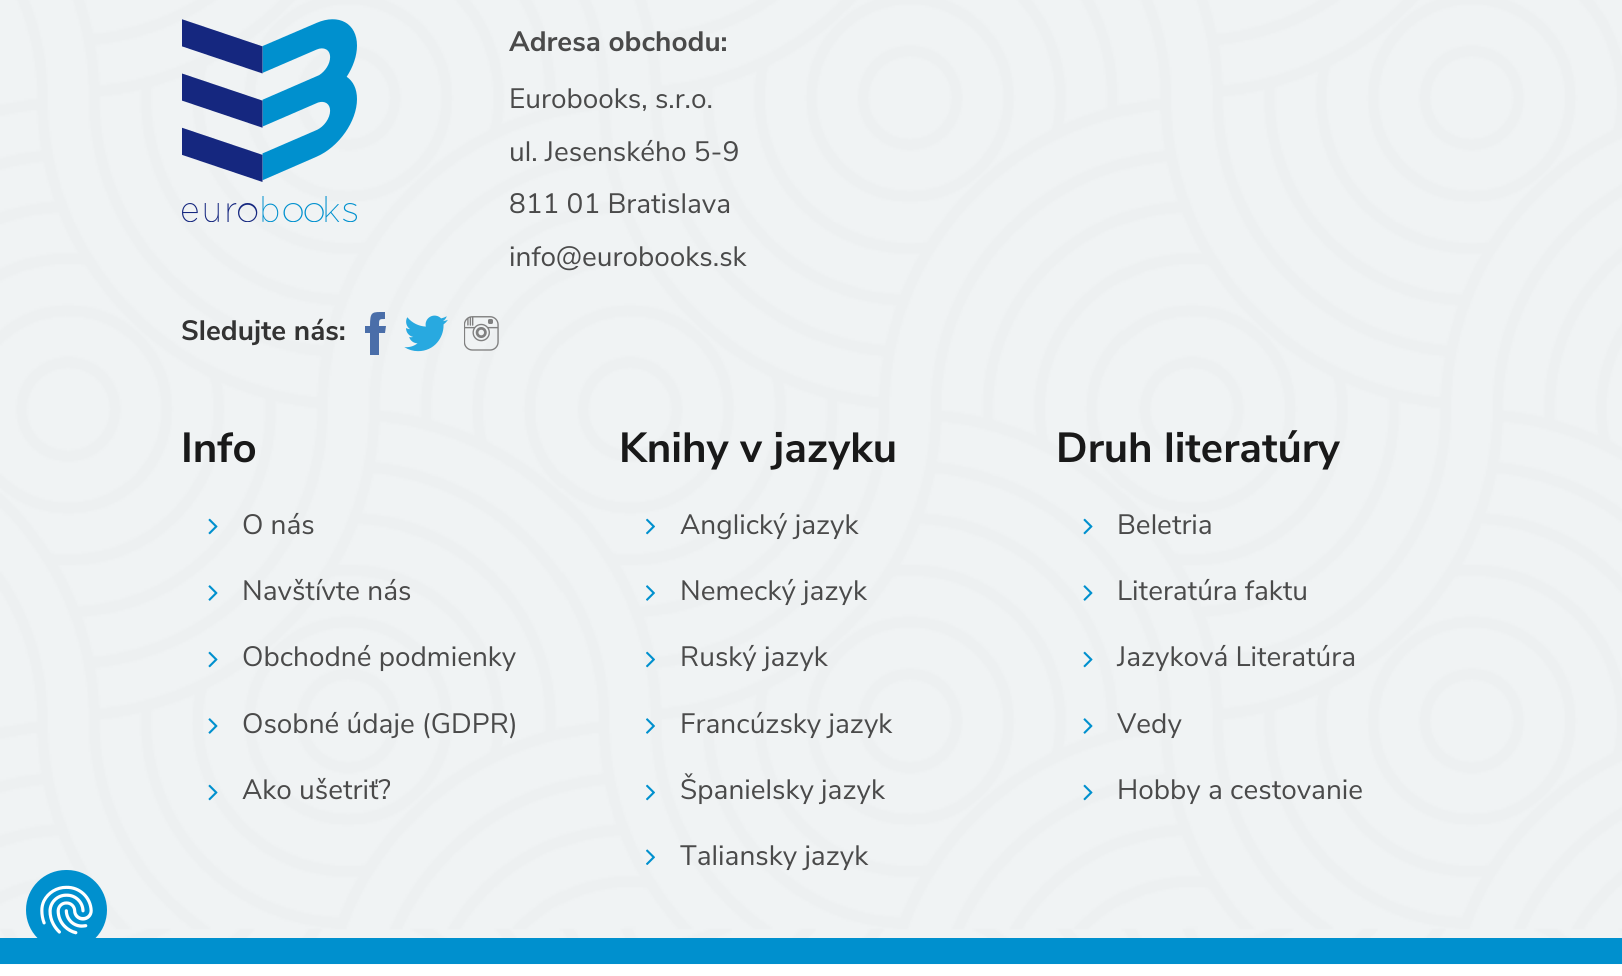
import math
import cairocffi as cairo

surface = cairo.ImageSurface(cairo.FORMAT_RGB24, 1622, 976)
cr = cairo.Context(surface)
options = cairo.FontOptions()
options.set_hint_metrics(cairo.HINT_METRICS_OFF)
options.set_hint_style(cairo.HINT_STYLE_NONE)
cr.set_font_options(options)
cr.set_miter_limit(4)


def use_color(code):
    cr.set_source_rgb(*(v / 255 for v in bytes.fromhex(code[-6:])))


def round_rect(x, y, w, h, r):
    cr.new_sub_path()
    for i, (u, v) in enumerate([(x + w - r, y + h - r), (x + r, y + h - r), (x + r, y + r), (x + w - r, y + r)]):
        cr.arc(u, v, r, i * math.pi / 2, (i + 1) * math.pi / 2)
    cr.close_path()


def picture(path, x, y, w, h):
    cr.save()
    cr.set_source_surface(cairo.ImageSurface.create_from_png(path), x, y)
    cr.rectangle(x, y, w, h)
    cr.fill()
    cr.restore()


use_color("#ffffff")
cr.paint()
picture("img1.png", 0, 0, 1622, 965)
use_color("#0090ce")
cr.rectangle(0, 938, 1622, 26)
cr.fill()
picture("img2.png", 182, 19, 175, 203)
cr.select_font_face("Nunito Sans", cairo.FONT_SLANT_NORMAL, cairo.FONT_WEIGHT_BOLD)
cr.set_font_size(28)
use_color("#4a4a4a")
cr.move_to(509, 51)
cr.show_text("Adresa obchodu:")
cr.select_font_face("Nunito Sans")
cr.move_to(509, 108)
cr.show_text("Eurobooks, s.r.o.")
cr.move_to(509, 161)
cr.show_text("ul. Jesenského 5-9")
cr.move_to(509, 213)
cr.show_text("811 01 Bratislava")
cr.move_to(509, 266)
cr.show_text("info@eurobooks.sk")
cr.select_font_face("Nunito Sans", cairo.FONT_SLANT_NORMAL, cairo.FONT_WEIGHT_BOLD)
use_color("#333333")
cr.move_to(181, 340)
cr.show_text("Sledujte nás:")
use_color("#4a6ea9")
cr.new_path()
cr.move_to(386, 326)
cr.line_to(379, 326)
cr.curve_to(379, 319, 379, 319, 385, 319)
cr.line_to(385, 312)
cr.curve_to(372, 312, 370, 311, 370, 326)
cr.line_to(365, 326)
cr.line_to(365, 333)
cr.line_to(370, 333)
cr.line_to(370, 355)
cr.line_to(379, 355)
cr.line_to(379, 333)
cr.line_to(385, 333)
cr.close_path()
cr.fill()
picture("img3.png", 404, 315, 44, 37)
picture("img4.png", 464, 316, 35, 35)
cr.set_font_size(42)
use_color("#191919")
cr.move_to(181, 462)
cr.show_text("Info")
picture("img5.png", 208, 518, 10, 17)
cr.select_font_face("Nunito Sans")
cr.set_font_size(28)
use_color("#4a4a4a")
cr.move_to(242, 534)
cr.show_text("O nás")
picture("img6.png", 208, 585, 10, 16)
cr.move_to(242, 600)
cr.show_text("Navštívte nás")
picture("img5.png", 208, 651, 10, 17)
cr.move_to(242, 666)
cr.show_text("Obchodné podmienky")
picture("img6.png", 208, 718, 10, 16)
cr.move_to(242, 733)
cr.show_text("Osobné údaje (GDPR)")
picture("img7.png", 208, 784, 10, 17)
cr.move_to(242, 799)
cr.show_text("Ako ušetriť?")
cr.select_font_face("Nunito Sans", cairo.FONT_SLANT_NORMAL, cairo.FONT_WEIGHT_BOLD)
cr.set_font_size(42)
use_color("#191919")
cr.move_to(619, 462)
cr.show_text("Knihy v jazyku")
picture("img8.png", 646, 518, 9, 17)
cr.select_font_face("Nunito Sans")
cr.set_font_size(28)
use_color("#4a4a4a")
cr.move_to(680, 534)
cr.show_text("Anglický jazyk")
picture("img9.png", 646, 585, 9, 16)
cr.move_to(680, 600)
cr.show_text("Nemecký jazyk")
picture("img10.png", 646, 651, 9, 17)
cr.move_to(680, 666)
cr.show_text("Ruský jazyk")
picture("img11.png", 646, 718, 9, 16)
cr.move_to(680, 733)
cr.show_text("Francúzsky jazyk")
picture("img8.png", 646, 784, 9, 17)
cr.move_to(680, 799)
cr.show_text("Španielsky jazyk")
picture("img12.png", 646, 849, 9, 16)
cr.move_to(680, 865)
cr.show_text("Taliansky jazyk")
cr.select_font_face("Nunito Sans", cairo.FONT_SLANT_NORMAL, cairo.FONT_WEIGHT_BOLD)
cr.set_font_size(42)
use_color("#191919")
cr.move_to(1056, 462)
cr.show_text("Druh literatúry")
picture("img13.png", 1083, 518, 10, 17)
cr.select_font_face("Nunito Sans")
cr.set_font_size(28)
use_color("#4a4a4a")
cr.move_to(1117, 534)
cr.show_text("Beletria")
picture("img6.png", 1083, 585, 10, 16)
cr.move_to(1117, 600)
cr.show_text("Literatúra faktu")
picture("img5.png", 1083, 651, 10, 17)
cr.move_to(1117, 666)
cr.show_text("Jazyková Literatúra")
picture("img6.png", 1083, 718, 10, 16)
cr.move_to(1117, 733)
cr.show_text("Vedy")
picture("img14.png", 1083, 784, 10, 17)
cr.move_to(1117, 799)
cr.show_text("Hobby a cestovanie")
use_color("#0090ce")
round_rect(27, 871, 79, 78, 39)
cr.fill_preserve()
cr.stroke()
picture("img15.png", 40, 885, 53, 50)
surface.write_to_png("result.png")
